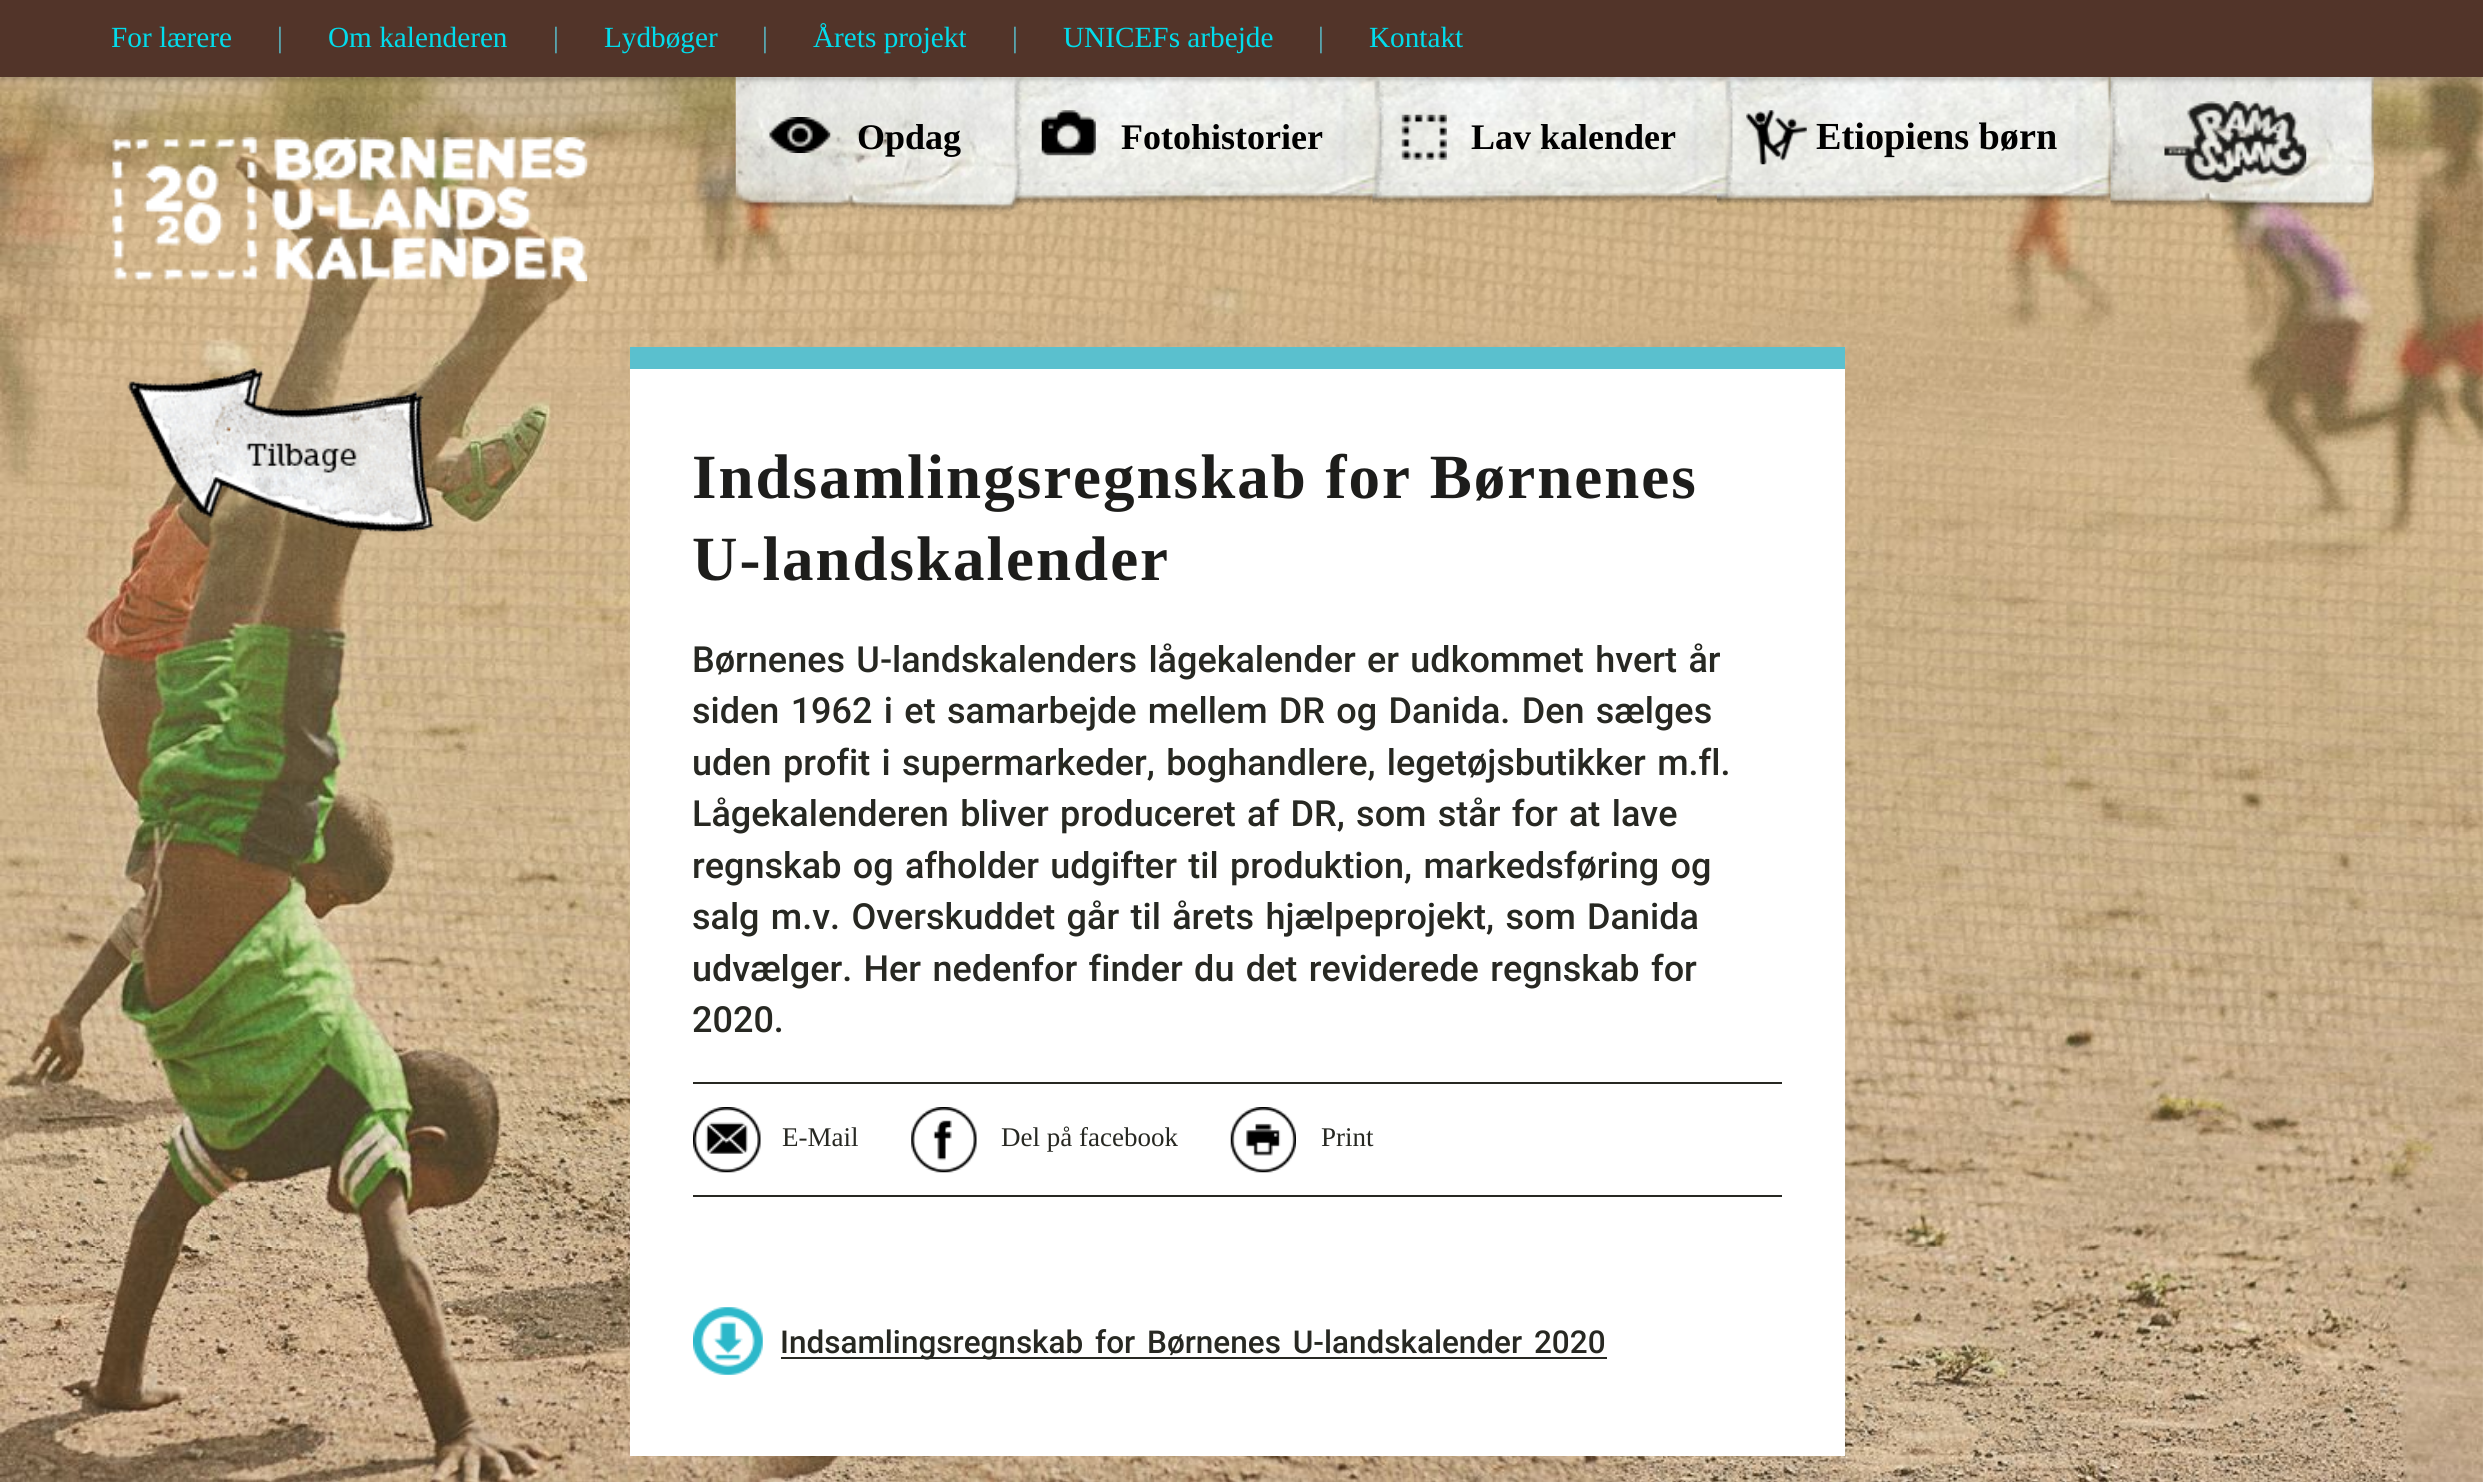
import math
import cairocffi as cairo

surface = cairo.ImageSurface(cairo.FORMAT_RGB24, 2483, 1482)
cr = cairo.Context(surface)
options = cairo.FontOptions()
options.set_hint_metrics(cairo.HINT_METRICS_OFF)
options.set_hint_style(cairo.HINT_STYLE_NONE)
cr.set_font_options(options)
cr.set_miter_limit(4)


def use_color(code):
    cr.set_source_rgb(*(v / 255 for v in bytes.fromhex(code[-6:])))


def spaced_text(x, y, s, letter, word):
    cr.move_to(x, y)
    for ch in s:
        cr.show_text(ch)
        cr.rel_move_to(letter + word * (ch == ' '), 0)


def round_rect(x, y, w, h, r):
    cr.new_sub_path()
    for i, (u, v) in enumerate([(x + w - r, y + h - r), (x + r, y + h - r), (x + r, y + r), (x + w - r, y + r)]):
        cr.arc(u, v, r, i * math.pi / 2, (i + 1) * math.pi / 2)
    cr.close_path()


def shadow(x, y, w, h, r, blur, alpha):
    cr.push_group_with_content(cairo.CONTENT_ALPHA)
    cr.set_operator(cairo.OPERATOR_SOURCE)
    for i in range(15, -16, -2):
        e = blur * i / 6
        if min(w, h) + 2 * e > 0:
            cr.set_source_rgba(0, 0, 0, alpha * math.erfc((i - 1) / 8.5) / 2)
            round_rect(x - e, y - e, w + 2 * e, h + 2 * e, max(0, min(r + e + blur * .6, min(w, h) / 2 + e)))
            cr.fill()
    cr.mask(cr.pop_group())


def picture(path, x, y, w, h):
    cr.save()
    cr.set_source_surface(cairo.ImageSurface.create_from_png(path), x, y)
    cr.rectangle(x, y, w, h)
    cr.fill()
    cr.restore()


use_color("#ffffff")
cr.paint()
picture("img1.png", 0, 77, 2483, 1405)
picture("img11.png", 2110, 77, 264, 135)
picture("img9.png", 1716, 77, 402, 128)
picture("img7.png", 1372, 77, 361, 128)
picture("img5.png", 1012, 77, 372, 128)
picture("img3.png", 735, 77, 289, 137)
use_color("#000000")
shadow(0, 5, 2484, 76, 0, 2, 0.15)
use_color("#523429")
cr.rectangle(0, 0, 2483, 77)
cr.fill()
cr.select_font_face("Liberation Serif")
cr.set_font_size(29.25)
use_color("#01dcec")
cr.move_to(111, 47)
cr.show_text("For lærere")
use_color("#5ac0ce")
cr.move_to(277, 47)
cr.show_text("|")
use_color("#01dcec")
cr.move_to(328, 47)
cr.show_text("Om kalenderen")
use_color("#5ac0ce")
cr.move_to(553, 47)
cr.show_text("|")
use_color("#01dcec")
cr.move_to(604, 47)
cr.show_text("Lydbøger")
use_color("#5ac0ce")
cr.move_to(762, 47)
cr.show_text("|")
use_color("#01dcec")
cr.move_to(813, 47)
cr.show_text("Årets projekt")
use_color("#5ac0ce")
cr.move_to(1012, 47)
cr.show_text("|")
use_color("#01dcec")
cr.move_to(1063, 47)
cr.show_text("UNICEFs arbejde")
use_color("#5ac0ce")
cr.move_to(1318, 47)
cr.show_text("|")
use_color("#01dcec")
cr.move_to(1369, 47)
cr.show_text("Kontakt")
picture("img2.png", 112, 137, 476, 145)
picture("img4.png", 769, 117, 62, 36)
cr.select_font_face("Liberation Serif", cairo.FONT_SLANT_NORMAL, cairo.FONT_WEIGHT_BOLD)
cr.set_font_size(36)
use_color("#000000")
cr.move_to(857, 149)
cr.show_text("Opdag")
picture("img6.png", 1041, 110, 55, 46)
cr.move_to(1121, 149)
cr.show_text("Fotohistorier")
picture("img8.png", 1401, 114, 46, 46)
cr.move_to(1471, 149)
cr.show_text("Lav kalender")
picture("img10.png", 1746, 110, 61, 55)
cr.set_font_size(38.25)
cr.move_to(1816, 149)
cr.show_text("Etiopiens børn")
picture("img12.png", 2164, 101, 143, 82)
picture("img13.png", 127, 368, 323, 165)
use_color("#ffffff")
cr.rectangle(630, 369, 1215, 1087)
cr.fill()
use_color("#5ac0ce")
cr.rectangle(630, 347, 1215, 22)
cr.fill()
cr.set_font_size(63)
use_color("#1d1d1b")
spaced_text(692, 498, "Indsamlingsregnskab for Børnenes", 2, 0)
spaced_text(692, 580, "U-landskalender", 2, 0)
cr.select_font_face("Roboto Medium")
cr.set_font_size(36)
use_color("#272822")
spaced_text(692, 672, "Børnenes U-landskalenders lågekalender er udkommet hvert år", 0, 2.4)
spaced_text(692, 723, "siden 1962 i et samarbejde mellem DR og Danida. Den sælges", 0, 2.4)
spaced_text(692, 775, "uden profit i supermarkeder, boghandlere, legetøjsbutikker m.fl.", 0, 2.4)
spaced_text(692, 826, "Lågekalenderen bliver produceret af DR, som står for at lave", 0, 2.4)
spaced_text(692, 878, "regnskab og afholder udgifter til produktion, markedsføring og", 0, 2.4)
spaced_text(692, 929, "salg m.v. Overskuddet går til årets hjælpeprojekt, som Danida", 0, 2.4)
spaced_text(692, 981, "udvælger. Her nedenfor finder du det reviderede regnskab for", 0, 2.4)
cr.move_to(692, 1032)
cr.show_text("2020.")
cr.rectangle(693, 1082, 1089, 2)
cr.fill()
cr.rectangle(693, 1195, 1089, 2)
cr.fill()
picture("img14.png", 693, 1107, 68, 66)
cr.select_font_face("Liberation Serif")
cr.set_font_size(27)
cr.move_to(782, 1146)
cr.show_text("E-Mail")
picture("img15.png", 911, 1107, 66, 66)
cr.move_to(1001, 1146)
cr.show_text("Del på facebook")
picture("img16.png", 1230, 1107, 66, 66)
cr.move_to(1321, 1146)
cr.show_text("Print")
picture("img17.png", 693, 1307, 70, 68)
cr.rectangle(781, 1357, 826, 2)
cr.fill()
cr.select_font_face("Roboto Medium")
cr.set_font_size(31.5)
spaced_text(780, 1353, "Indsamlingsregnskab for Børnenes U-landskalender 2020", 0, 4)
surface.write_to_png("result.png")
